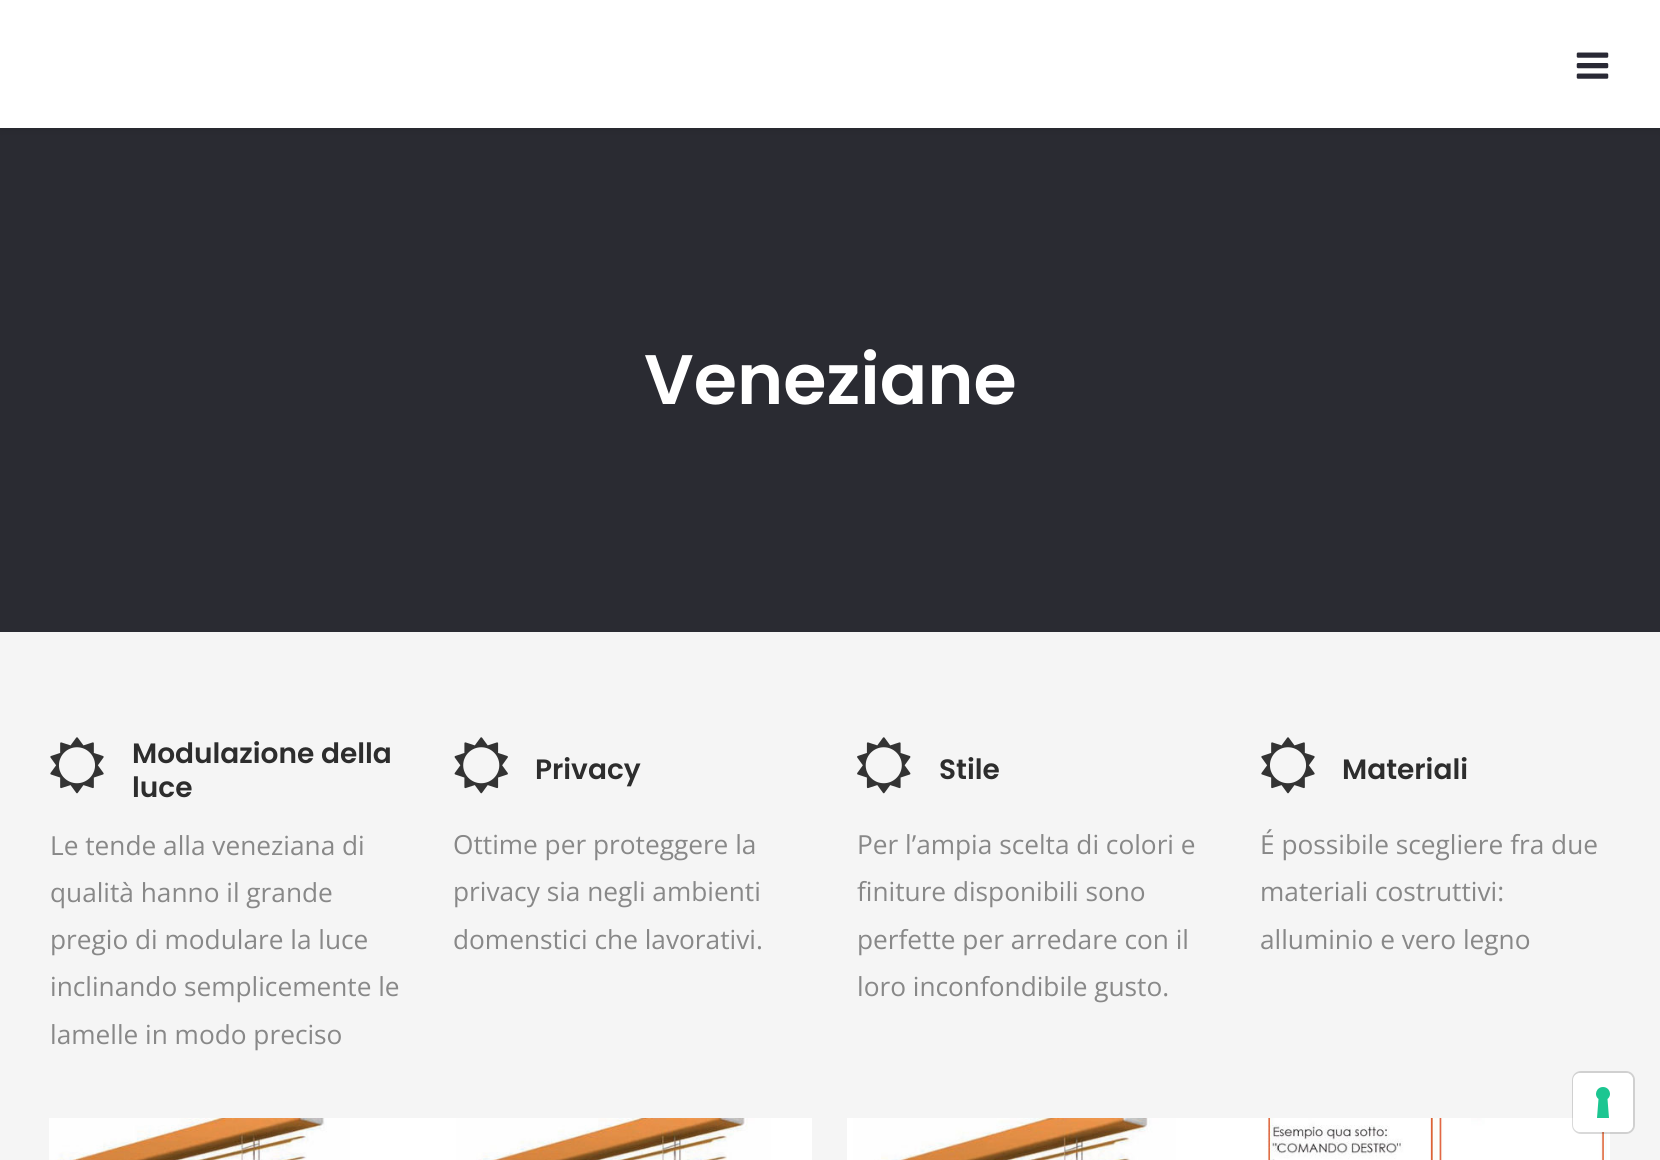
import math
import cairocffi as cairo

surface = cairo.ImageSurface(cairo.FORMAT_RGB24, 1660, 1160)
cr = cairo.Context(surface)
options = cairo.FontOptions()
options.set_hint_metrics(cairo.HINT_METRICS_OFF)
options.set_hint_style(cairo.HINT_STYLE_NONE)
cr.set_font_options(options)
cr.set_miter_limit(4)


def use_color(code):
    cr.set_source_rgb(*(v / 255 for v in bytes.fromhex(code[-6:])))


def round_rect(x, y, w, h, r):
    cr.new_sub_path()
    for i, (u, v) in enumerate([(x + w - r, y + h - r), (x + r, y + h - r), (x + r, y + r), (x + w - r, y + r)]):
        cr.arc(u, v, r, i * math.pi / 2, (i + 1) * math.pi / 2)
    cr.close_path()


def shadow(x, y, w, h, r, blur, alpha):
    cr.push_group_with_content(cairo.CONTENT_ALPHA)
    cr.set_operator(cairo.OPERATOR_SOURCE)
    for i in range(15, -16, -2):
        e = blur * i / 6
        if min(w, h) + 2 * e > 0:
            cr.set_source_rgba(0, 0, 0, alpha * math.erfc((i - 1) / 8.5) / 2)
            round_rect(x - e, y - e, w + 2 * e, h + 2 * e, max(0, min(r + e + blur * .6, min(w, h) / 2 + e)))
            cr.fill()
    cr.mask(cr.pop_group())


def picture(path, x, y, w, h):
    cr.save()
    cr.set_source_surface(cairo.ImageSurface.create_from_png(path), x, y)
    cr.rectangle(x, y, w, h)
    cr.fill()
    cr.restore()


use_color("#f5f5f5")
cr.paint()
use_color("#2a2b32")
cr.rectangle(0, 128, 1660, 504)
cr.fill()
use_color("#000000")
shadow(0, 2, 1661, 128, 0, 5, 0.09)
use_color("#ffffff")
cr.rectangle(0, 0, 1660, 128)
cr.fill()
picture("img1.png", 1576, 52, 33, 27)
cr.select_font_face("Poppins SemiBold")
cr.set_font_size(70)
cr.move_to(644, 404)
cr.show_text("Veneziane")
picture("img2.png", 50, 737, 54, 57)
cr.set_font_size(28)
use_color("#2d2d2d")
cr.move_to(132, 763)
cr.show_text("Modulazione della")
cr.move_to(132, 797)
cr.show_text("luce")
cr.select_font_face("Open Sans")
cr.set_font_size(26.25)
use_color("#888888")
cr.move_to(50, 855)
cr.show_text("Le tende alla veneziana di")
cr.move_to(50, 902)
cr.show_text("qualità hanno il grande")
cr.move_to(50, 949)
cr.show_text("pregio di modulare la luce")
cr.move_to(50, 996)
cr.show_text("inclinando semplicemente le")
cr.move_to(50, 1044)
cr.show_text("lamelle in modo preciso")
picture("img3.png", 454, 737, 54, 57)
cr.select_font_face("Poppins SemiBold")
cr.set_font_size(28)
use_color("#2d2d2d")
cr.move_to(535, 779)
cr.show_text("Privacy")
cr.select_font_face("Open Sans")
cr.set_font_size(26.25)
use_color("#888888")
cr.move_to(453, 854)
cr.show_text("Ottime per proteggere la")
cr.move_to(453, 901)
cr.show_text("privacy sia negli ambienti")
cr.move_to(453, 949)
cr.show_text("domenstici che lavorativi.")
picture("img4.png", 857, 737, 54, 57)
cr.select_font_face("Poppins SemiBold")
cr.set_font_size(28)
use_color("#2d2d2d")
cr.move_to(939, 779)
cr.show_text("Stile")
cr.select_font_face("Open Sans")
cr.set_font_size(26.25)
use_color("#888888")
cr.move_to(857, 854)
cr.show_text("Per l’ampia scelta di colori e")
cr.move_to(857, 901)
cr.show_text("finiture disponibili sono")
cr.move_to(857, 949)
cr.show_text("perfette per arredare con il")
cr.move_to(857, 996)
cr.show_text("loro inconfondibile gusto.")
picture("img2.png", 1261, 737, 54, 57)
cr.select_font_face("Poppins SemiBold")
cr.set_font_size(28)
use_color("#2d2d2d")
cr.move_to(1342, 779)
cr.show_text("Materiali")
cr.select_font_face("Open Sans")
cr.set_font_size(26.25)
use_color("#888888")
cr.move_to(1260, 854)
cr.show_text("É possibile scegliere fra due")
cr.move_to(1260, 901)
cr.show_text("materiali costruttivi:")
cr.move_to(1260, 949)
cr.show_text("alluminio e vero legno")
picture("img5.png", 49, 1118, 763, 42)
picture("img6.png", 847, 1118, 763, 42)
round_rect(1573, 1072, 61, 61, 8)
cr.set_source_rgba(0, 0, 0, 0.15)
cr.stroke()
use_color("#ffffff")
round_rect(1573, 1073, 60, 59, 7)
cr.fill()
use_color("#1cc691")
cr.set_fill_rule(cairo.FILL_RULE_EVEN_ODD)
cr.new_path()
cr.move_to(1603, 1087)
cr.curve_to(1609.5, 1087, 1612.5, 1095, 1607.5, 1099)
cr.line_to(1609, 1118)
cr.line_to(1597, 1118)
cr.line_to(1598.5, 1099)
cr.curve_to(1593.5, 1095, 1596.5, 1087, 1603, 1087)
cr.close_path()
cr.fill()
surface.write_to_png("result.png")
